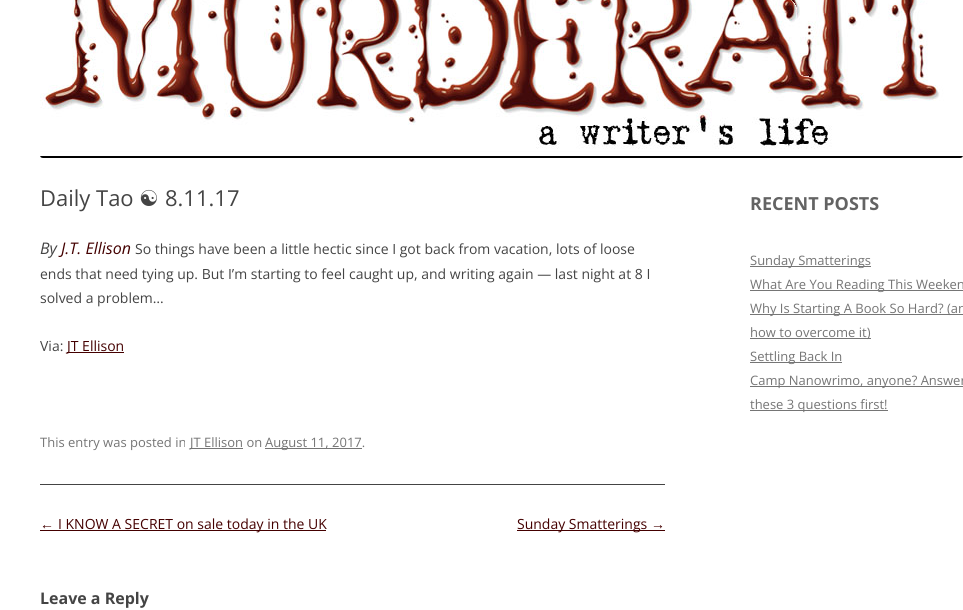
import math
import cairocffi as cairo

surface = cairo.ImageSurface(cairo.FORMAT_RGB24, 963, 610)
cr = cairo.Context(surface)
options = cairo.FontOptions()
options.set_hint_metrics(cairo.HINT_METRICS_OFF)
options.set_hint_style(cairo.HINT_STYLE_NONE)
cr.set_font_options(options)
cr.set_miter_limit(4)


def use_color(code):
    cr.set_source_rgb(*(v / 255 for v in bytes.fromhex(code[-6:])))


def picture(path, x, y, w, h):
    cr.save()
    cr.set_source_surface(cairo.ImageSurface.create_from_png(path), x, y)
    cr.rectangle(x, y, w, h)
    cr.fill()
    cr.restore()


use_color("#ffffff")
cr.paint()
picture("img1.png", 40, 0, 923, 158)
use_color("#444444")
cr.rectangle(40, 484, 625, 1)
cr.fill()
cr.select_font_face("Open Sans")
cr.set_font_size(22)
cr.move_to(40, 206)
cr.show_text("Daily Tao")
cr.select_font_face("DejaVu Sans")
cr.move_to(139, 206)
cr.show_text("☯")
cr.select_font_face("Open Sans")
cr.move_to(165, 206)
cr.show_text("8.11.17")
cr.select_font_face("Open Sans", cairo.FONT_SLANT_ITALIC)
cr.set_font_size(16)
cr.move_to(40, 254)
cr.show_text("By")
use_color("#440000")
cr.move_to(61, 254)
cr.show_text("J.T. Ellison")
cr.select_font_face("Open Sans")
cr.set_font_size(14)
use_color("#444444")
cr.move_to(135, 254)
cr.show_text("So things have been a little hectic since I got back from vacation, lots of loose")
cr.move_to(40, 279)
cr.show_text("ends that need tying up. But I’m starting to feel caught up, and writing again — last night at 8 I")
cr.move_to(40, 303)
cr.show_text("solved a problem…")
cr.move_to(40, 351)
cr.show_text("Via:")
use_color("#440000")
cr.rectangle(67, 352, 57, 1)
cr.fill()
cr.move_to(67, 351)
cr.show_text("JT Ellison")
cr.set_font_size(13)
use_color("#757575")
cr.move_to(40, 447)
cr.show_text("This entry was posted in")
cr.rectangle(190, 448, 53, 1)
cr.fill()
cr.move_to(190, 447)
cr.show_text("JT Ellison on")
cr.rectangle(265, 448, 97, 1)
cr.fill()
cr.move_to(265, 447)
cr.show_text("August 11, 2017.")
cr.select_font_face("Liberation Sans")
cr.set_font_size(14)
use_color("#440000")
cr.move_to(40, 529)
cr.show_text("←")
cr.rectangle(40, 530, 286, 1)
cr.fill()
cr.select_font_face("Open Sans")
cr.move_to(58, 529)
cr.show_text("I KNOW A SECRET on sale today in the UK")
cr.rectangle(517, 530, 148, 1)
cr.fill()
cr.move_to(517, 529)
cr.show_text("Sunday Smatterings")
cr.select_font_face("Liberation Sans")
cr.move_to(651, 529)
cr.show_text("→")
cr.select_font_face("Open Sans", cairo.FONT_SLANT_NORMAL, cairo.FONT_WEIGHT_BOLD)
cr.set_font_size(16)
use_color("#444444")
cr.move_to(40, 604)
cr.show_text("Leave a Reply")
cr.set_font_size(18)
use_color("#636363")
cr.move_to(750, 210)
cr.show_text("RECENT POSTS")
use_color("#757575")
cr.rectangle(750, 266, 121, 1)
cr.fill()
cr.select_font_face("Open Sans")
cr.set_font_size(13)
cr.move_to(750, 265)
cr.show_text("Sunday Smatterings")
cr.rectangle(750, 290, 213, 1)
cr.fill()
cr.move_to(750, 289)
cr.show_text("What Are You Reading This Weeken")
cr.rectangle(750, 314, 213, 1)
cr.fill()
cr.move_to(750, 313)
cr.show_text("Why Is Starting A Book So Hard? (an")
cr.rectangle(750, 338, 121, 1)
cr.fill()
cr.move_to(750, 337)
cr.show_text("how to overcome it)")
cr.rectangle(750, 362, 92, 1)
cr.fill()
cr.move_to(750, 361)
cr.show_text("Settling Back In")
cr.rectangle(750, 386, 213, 1)
cr.fill()
cr.move_to(750, 385)
cr.show_text("Camp Nanowrimo, anyone? Answer")
cr.rectangle(750, 410, 138, 1)
cr.fill()
cr.move_to(750, 409)
cr.show_text("these 3 questions first!")
surface.write_to_png("result.png")
